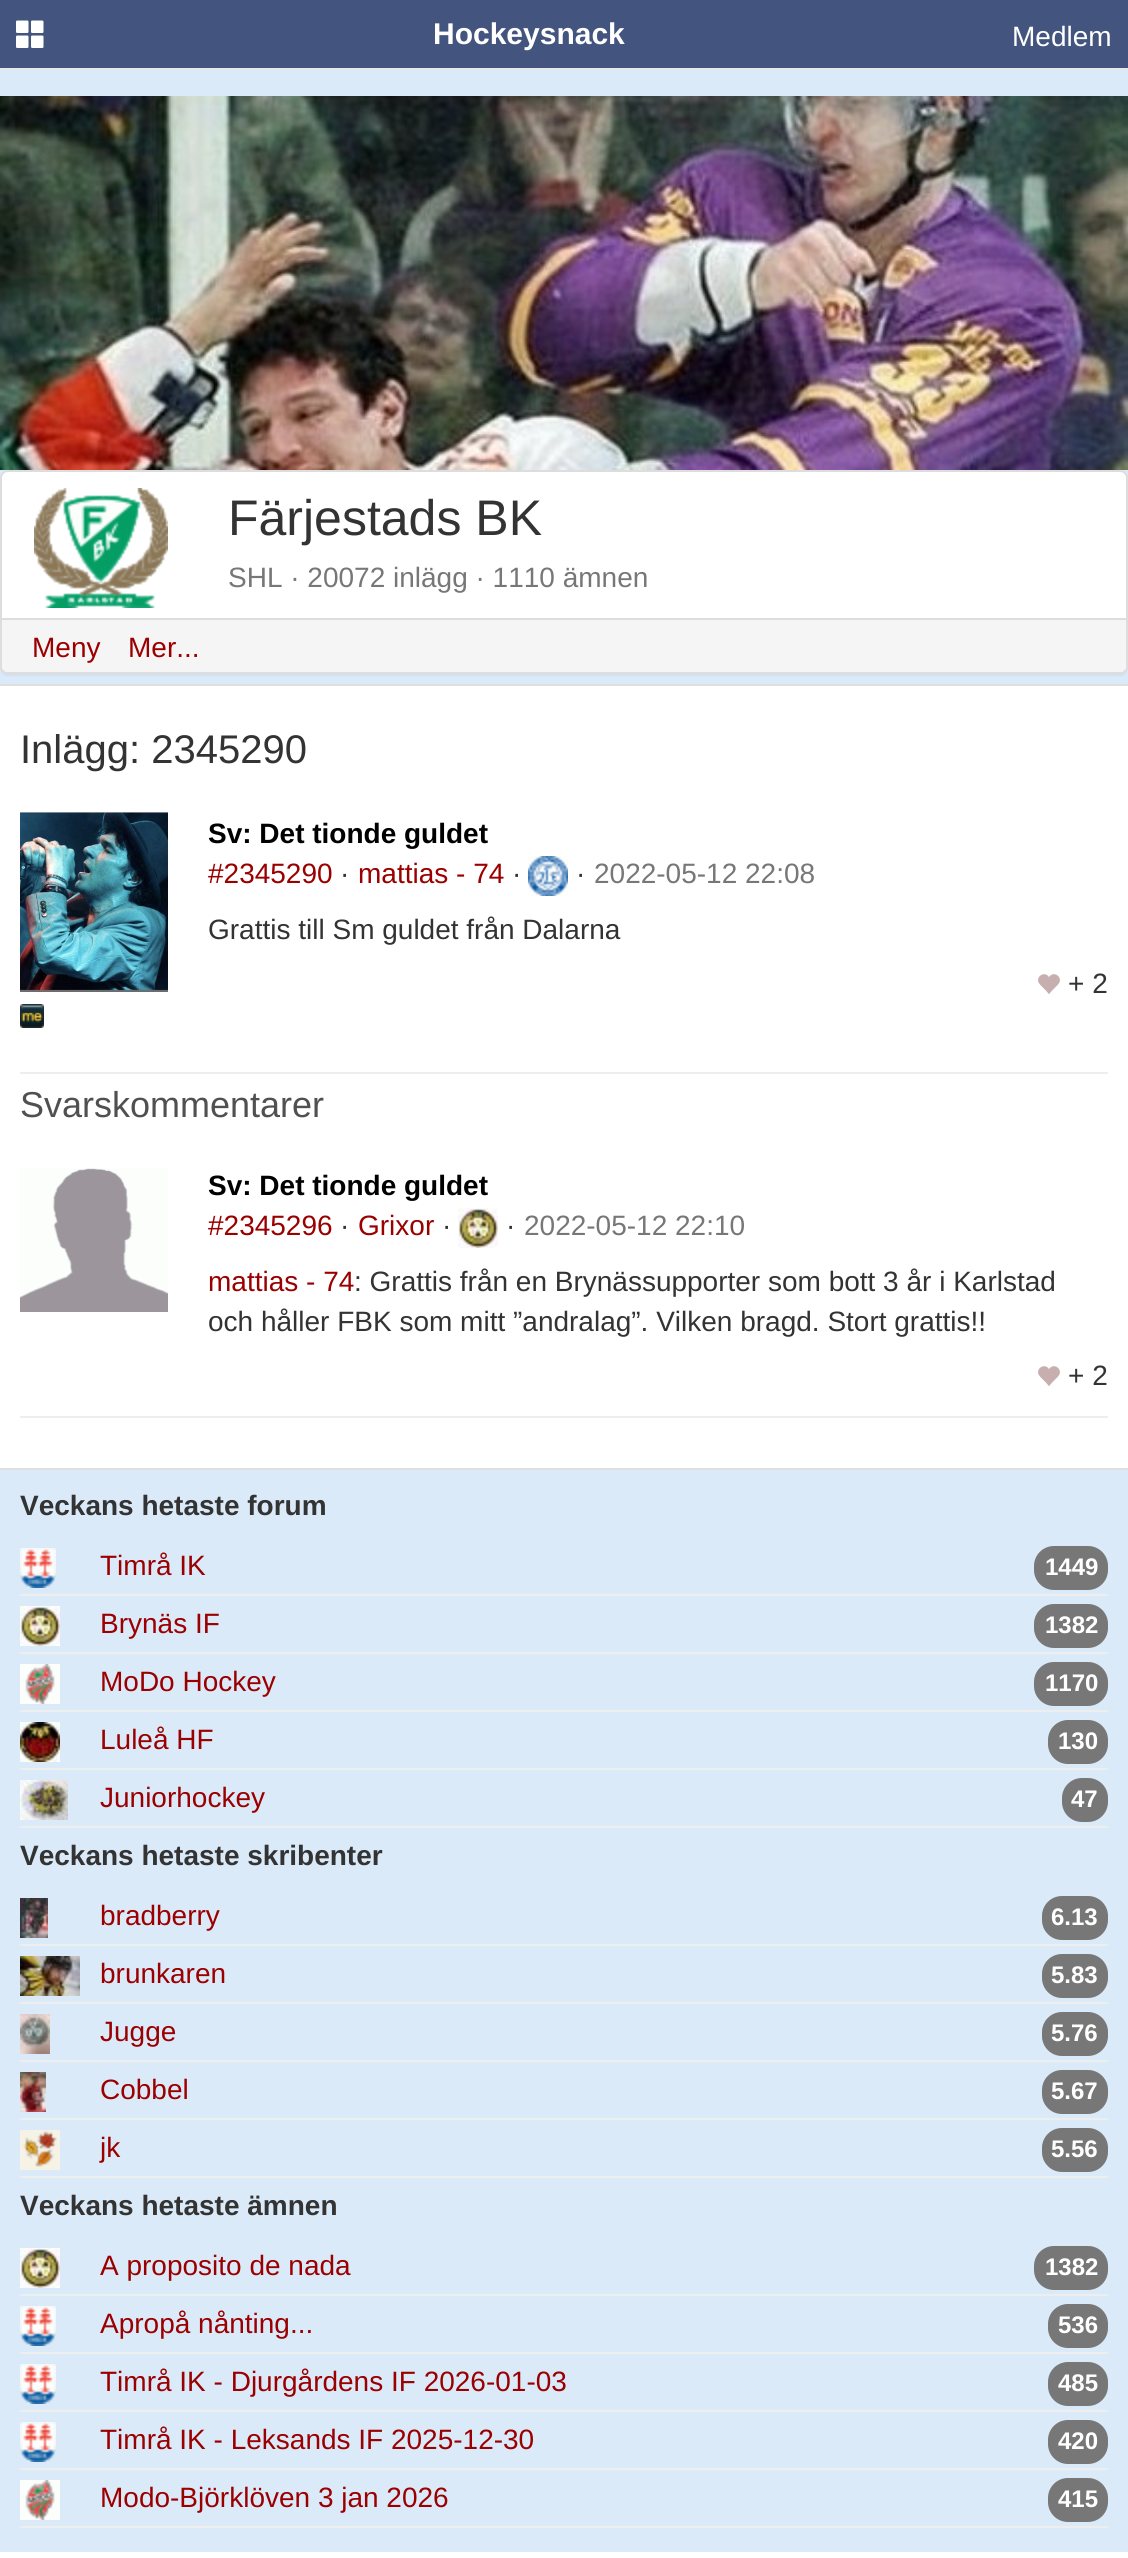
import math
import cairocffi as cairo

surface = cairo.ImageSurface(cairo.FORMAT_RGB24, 1128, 2558)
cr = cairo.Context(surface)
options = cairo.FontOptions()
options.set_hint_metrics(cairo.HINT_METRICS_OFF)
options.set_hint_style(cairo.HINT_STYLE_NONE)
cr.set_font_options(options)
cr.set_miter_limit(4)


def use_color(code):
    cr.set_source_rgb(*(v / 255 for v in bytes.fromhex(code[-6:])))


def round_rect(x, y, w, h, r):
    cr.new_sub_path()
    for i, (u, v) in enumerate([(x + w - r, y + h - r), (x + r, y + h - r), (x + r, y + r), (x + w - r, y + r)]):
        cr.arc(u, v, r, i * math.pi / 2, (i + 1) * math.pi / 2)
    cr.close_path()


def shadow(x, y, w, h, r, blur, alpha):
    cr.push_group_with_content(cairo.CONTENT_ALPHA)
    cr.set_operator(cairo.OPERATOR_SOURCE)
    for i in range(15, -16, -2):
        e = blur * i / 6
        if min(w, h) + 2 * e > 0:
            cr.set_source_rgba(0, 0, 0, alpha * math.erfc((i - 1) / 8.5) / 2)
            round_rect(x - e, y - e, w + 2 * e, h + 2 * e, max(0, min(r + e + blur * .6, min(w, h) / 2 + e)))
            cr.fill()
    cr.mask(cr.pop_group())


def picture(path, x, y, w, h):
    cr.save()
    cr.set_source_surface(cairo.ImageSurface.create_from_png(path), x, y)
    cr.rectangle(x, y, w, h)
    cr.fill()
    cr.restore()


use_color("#ffffff")
cr.paint()
use_color("#43557f")
cr.rectangle(0, 0, 1128, 68)
cr.fill()
use_color("#e7e7e7")
cr.rectangle(0, 68, 1128, 2)
cr.fill()
picture("img1.png", 16, 20, 28, 28)
cr.select_font_face("Liberation Sans", cairo.FONT_SLANT_NORMAL, cairo.FONT_WEIGHT_BOLD)
cr.set_font_size(30)
use_color("#ffffff")
cr.move_to(433, 44)
cr.show_text("Hockeysnack")
cr.select_font_face("Liberation Sans")
cr.set_font_size(28)
cr.move_to(1012, 46)
cr.show_text("Medlem")
use_color("#dbeaf9")
cr.rectangle(0, 70, 1128, 614)
cr.fill()
use_color("#dfdfdf")
cr.rectangle(0, 684, 1128, 2)
cr.fill()
use_color("#000000")
shadow(0, 472, 1128, 204, 8, 1, 0.05)
picture("img2.png", 0, 96, 1128, 374)
use_color("#ffffff")
round_rect(1, 471, 1126, 202, 7)
cr.fill_preserve()
use_color("#dddddd")
cr.stroke()
picture("img3.png", 34, 488, 134, 120)
cr.set_font_size(50)
use_color("#333333")
cr.move_to(228, 535)
cr.show_text("Färjestads BK")
cr.set_font_size(28)
use_color("#777777")
cr.move_to(228, 587)
cr.show_text("SHL · 20072 inlägg · 1110 ämnen")
use_color("#f5f5f5")
cr.new_path()
cr.move_to(2, 618)
cr.line_to(1126, 618)
cr.line_to(1126, 666)
cr.curve_to(1126, 669.5, 1123.5, 672, 1120, 672)
cr.line_to(8, 672)
cr.curve_to(4.5, 672, 2, 669.5, 2, 666)
cr.close_path()
cr.fill()
use_color("#dddddd")
cr.rectangle(2, 618, 1124, 2)
cr.fill()
use_color("#9b0000")
cr.move_to(32, 657)
cr.show_text("Meny")
cr.move_to(128, 657)
cr.show_text("Mer...")
cr.set_font_size(40)
use_color("#333333")
cr.move_to(20, 763)
cr.show_text("Inlägg: 2345290")
picture("img4.png", 20, 812, 148, 180)
picture("img5.png", 20, 1004, 24, 24)
cr.select_font_face("Liberation Sans", cairo.FONT_SLANT_NORMAL, cairo.FONT_WEIGHT_BOLD)
cr.set_font_size(28)
use_color("#000000")
cr.move_to(208, 843)
cr.show_text("Sv: Det tionde guldet")
cr.select_font_face("Liberation Sans")
use_color("#9b0000")
cr.move_to(208, 883)
cr.show_text("#2345290")
use_color("#333333")
cr.move_to(340, 883)
cr.show_text("·")
use_color("#9b0000")
cr.move_to(358, 883)
cr.show_text("mattias - 74")
use_color("#333333")
cr.move_to(512, 883)
cr.show_text("·")
picture("img6.png", 528, 856, 40, 40)
cr.move_to(576, 883)
cr.show_text("·")
use_color("#777777")
cr.move_to(594, 883)
cr.show_text("2022-05-12 22:08")
use_color("#333333")
cr.move_to(208, 939)
cr.show_text("Grattis till Sm guldet från Dalarna")
picture("img7.png", 1038, 974, 22, 20)
cr.move_to(1068, 993)
cr.show_text("+ 2")
use_color("#eeeeee")
cr.rectangle(20, 1072, 1088, 2)
cr.fill()
cr.set_font_size(36)
use_color("#505050")
cr.move_to(20, 1117)
cr.show_text("Svarskommentarer")
picture("img8.png", 20, 1168, 148, 144)
cr.select_font_face("Liberation Sans", cairo.FONT_SLANT_NORMAL, cairo.FONT_WEIGHT_BOLD)
cr.set_font_size(28)
use_color("#000000")
cr.move_to(208, 1195)
cr.show_text("Sv: Det tionde guldet")
cr.select_font_face("Liberation Sans")
use_color("#9b0000")
cr.move_to(208, 1235)
cr.show_text("#2345296")
use_color("#333333")
cr.move_to(340, 1235)
cr.show_text("·")
use_color("#9b0000")
cr.move_to(358, 1235)
cr.show_text("Grixor")
use_color("#333333")
cr.move_to(442, 1235)
cr.show_text("·")
picture("img9.png", 458, 1208, 40, 40)
cr.move_to(506, 1235)
cr.show_text("·")
use_color("#777777")
cr.move_to(524, 1235)
cr.show_text("2022-05-12 22:10")
use_color("#9b0000")
cr.move_to(208, 1291)
cr.show_text("mattias - 74")
use_color("#333333")
cr.move_to(354, 1291)
cr.show_text(": Grattis från en Brynässupporter som bott 3 år i Karlstad")
cr.move_to(208, 1331)
cr.show_text("och håller FBK som mitt ”andralag”. Vilken bragd. Stort grattis!!")
picture("img7.png", 1038, 1366, 22, 20)
cr.move_to(1068, 1385)
cr.show_text("+ 2")
use_color("#eeeeee")
cr.rectangle(20, 1416, 1088, 2)
cr.fill()
use_color("#dbeaf9")
cr.rectangle(0, 1470, 1128, 1082)
cr.fill()
use_color("#dfdfdf")
cr.rectangle(0, 1468, 1128, 2)
cr.fill()
cr.select_font_face("Liberation Sans", cairo.FONT_SLANT_NORMAL, cairo.FONT_WEIGHT_BOLD)
use_color("#333333")
cr.move_to(20, 1515)
cr.show_text("Veckans hetaste forum")
picture("img10.png", 20, 1548, 36, 40)
cr.select_font_face("Liberation Sans")
use_color("#9b0000")
cr.move_to(100, 1575)
cr.show_text("Timrå IK")
use_color("#777777")
round_rect(1034, 1546, 74, 44, 20)
cr.fill()
cr.select_font_face("Liberation Sans", cairo.FONT_SLANT_NORMAL, cairo.FONT_WEIGHT_BOLD)
cr.set_font_size(24)
use_color("#ffffff")
cr.move_to(1045, 1575)
cr.show_text("1449")
use_color("#eeeeee")
cr.rectangle(20, 1594, 1088, 2)
cr.fill()
picture("img9.png", 20, 1606, 40, 40)
cr.select_font_face("Liberation Sans")
cr.set_font_size(28)
use_color("#9b0000")
cr.move_to(100, 1633)
cr.show_text("Brynäs IF")
use_color("#777777")
round_rect(1034, 1604, 74, 44, 20)
cr.fill()
cr.select_font_face("Liberation Sans", cairo.FONT_SLANT_NORMAL, cairo.FONT_WEIGHT_BOLD)
cr.set_font_size(24)
use_color("#ffffff")
cr.move_to(1045, 1633)
cr.show_text("1382")
use_color("#eeeeee")
cr.rectangle(20, 1652, 1088, 2)
cr.fill()
picture("img11.png", 20, 1664, 40, 40)
cr.select_font_face("Liberation Sans")
cr.set_font_size(28)
use_color("#9b0000")
cr.move_to(100, 1691)
cr.show_text("MoDo Hockey")
use_color("#777777")
round_rect(1034, 1662, 74, 44, 20)
cr.fill()
cr.select_font_face("Liberation Sans", cairo.FONT_SLANT_NORMAL, cairo.FONT_WEIGHT_BOLD)
cr.set_font_size(24)
use_color("#ffffff")
cr.move_to(1045, 1691)
cr.show_text("1170")
use_color("#eeeeee")
cr.rectangle(20, 1710, 1088, 2)
cr.fill()
picture("img12.png", 20, 1722, 40, 40)
cr.select_font_face("Liberation Sans")
cr.set_font_size(28)
use_color("#9b0000")
cr.move_to(100, 1749)
cr.show_text("Luleå HF")
use_color("#777777")
round_rect(1048, 1720, 60, 44, 20)
cr.fill()
cr.select_font_face("Liberation Sans", cairo.FONT_SLANT_NORMAL, cairo.FONT_WEIGHT_BOLD)
cr.set_font_size(24)
use_color("#ffffff")
cr.move_to(1058, 1749)
cr.show_text("130")
use_color("#eeeeee")
cr.rectangle(20, 1768, 1088, 2)
cr.fill()
picture("img13.png", 20, 1780, 48, 40)
cr.select_font_face("Liberation Sans")
cr.set_font_size(28)
use_color("#9b0000")
cr.move_to(100, 1807)
cr.show_text("Juniorhockey")
use_color("#777777")
round_rect(1062, 1778, 46, 44, 20)
cr.fill()
cr.select_font_face("Liberation Sans", cairo.FONT_SLANT_NORMAL, cairo.FONT_WEIGHT_BOLD)
cr.set_font_size(24)
use_color("#ffffff")
cr.move_to(1071, 1807)
cr.show_text("47")
use_color("#eeeeee")
cr.rectangle(20, 1826, 1088, 2)
cr.fill()
cr.set_font_size(28)
use_color("#333333")
cr.move_to(20, 1865)
cr.show_text("Veckans hetaste skribenter")
picture("img14.png", 20, 1898, 28, 40)
cr.select_font_face("Liberation Sans")
use_color("#9b0000")
cr.move_to(100, 1925)
cr.show_text("bradberry")
use_color("#777777")
round_rect(1042, 1896, 66, 44, 20)
cr.fill()
cr.select_font_face("Liberation Sans", cairo.FONT_SLANT_NORMAL, cairo.FONT_WEIGHT_BOLD)
cr.set_font_size(24)
use_color("#ffffff")
cr.move_to(1051, 1925)
cr.show_text("6.13")
use_color("#eeeeee")
cr.rectangle(20, 1944, 1088, 2)
cr.fill()
picture("img15.png", 20, 1956, 60, 40)
cr.select_font_face("Liberation Sans")
cr.set_font_size(28)
use_color("#9b0000")
cr.move_to(100, 1983)
cr.show_text("brunkaren")
use_color("#777777")
round_rect(1042, 1954, 66, 44, 20)
cr.fill()
cr.select_font_face("Liberation Sans", cairo.FONT_SLANT_NORMAL, cairo.FONT_WEIGHT_BOLD)
cr.set_font_size(24)
use_color("#ffffff")
cr.move_to(1051, 1983)
cr.show_text("5.83")
use_color("#eeeeee")
cr.rectangle(20, 2002, 1088, 2)
cr.fill()
picture("img16.png", 20, 2014, 30, 40)
cr.select_font_face("Liberation Sans")
cr.set_font_size(28)
use_color("#9b0000")
cr.move_to(100, 2041)
cr.show_text("Jugge")
use_color("#777777")
round_rect(1042, 2012, 66, 44, 20)
cr.fill()
cr.select_font_face("Liberation Sans", cairo.FONT_SLANT_NORMAL, cairo.FONT_WEIGHT_BOLD)
cr.set_font_size(24)
use_color("#ffffff")
cr.move_to(1051, 2041)
cr.show_text("5.76")
use_color("#eeeeee")
cr.rectangle(20, 2060, 1088, 2)
cr.fill()
picture("img17.png", 20, 2072, 26, 40)
cr.select_font_face("Liberation Sans")
cr.set_font_size(28)
use_color("#9b0000")
cr.move_to(100, 2099)
cr.show_text("Cobbel")
use_color("#777777")
round_rect(1042, 2070, 66, 44, 20)
cr.fill()
cr.select_font_face("Liberation Sans", cairo.FONT_SLANT_NORMAL, cairo.FONT_WEIGHT_BOLD)
cr.set_font_size(24)
use_color("#ffffff")
cr.move_to(1051, 2099)
cr.show_text("5.67")
use_color("#eeeeee")
cr.rectangle(20, 2118, 1088, 2)
cr.fill()
picture("img18.png", 20, 2130, 40, 40)
cr.select_font_face("Liberation Sans")
cr.set_font_size(28)
use_color("#9b0000")
cr.move_to(100, 2157)
cr.show_text("jk")
use_color("#777777")
round_rect(1042, 2128, 66, 44, 20)
cr.fill()
cr.select_font_face("Liberation Sans", cairo.FONT_SLANT_NORMAL, cairo.FONT_WEIGHT_BOLD)
cr.set_font_size(24)
use_color("#ffffff")
cr.move_to(1051, 2157)
cr.show_text("5.56")
use_color("#eeeeee")
cr.rectangle(20, 2176, 1088, 2)
cr.fill()
cr.set_font_size(28)
use_color("#333333")
cr.move_to(20, 2215)
cr.show_text("Veckans hetaste ämnen")
picture("img9.png", 20, 2248, 40, 40)
cr.select_font_face("Liberation Sans")
use_color("#9b0000")
cr.move_to(100, 2275)
cr.show_text("A proposito de nada")
use_color("#777777")
round_rect(1034, 2246, 74, 44, 20)
cr.fill()
cr.select_font_face("Liberation Sans", cairo.FONT_SLANT_NORMAL, cairo.FONT_WEIGHT_BOLD)
cr.set_font_size(24)
use_color("#ffffff")
cr.move_to(1045, 2275)
cr.show_text("1382")
use_color("#eeeeee")
cr.rectangle(20, 2294, 1088, 2)
cr.fill()
picture("img10.png", 20, 2306, 36, 40)
cr.select_font_face("Liberation Sans")
cr.set_font_size(28)
use_color("#9b0000")
cr.move_to(100, 2333)
cr.show_text("Apropå nånting...")
use_color("#777777")
round_rect(1048, 2304, 60, 44, 20)
cr.fill()
cr.select_font_face("Liberation Sans", cairo.FONT_SLANT_NORMAL, cairo.FONT_WEIGHT_BOLD)
cr.set_font_size(24)
use_color("#ffffff")
cr.move_to(1058, 2333)
cr.show_text("536")
use_color("#eeeeee")
cr.rectangle(20, 2352, 1088, 2)
cr.fill()
picture("img10.png", 20, 2364, 36, 40)
cr.select_font_face("Liberation Sans")
cr.set_font_size(28)
use_color("#9b0000")
cr.move_to(100, 2391)
cr.show_text("Timrå IK - Djurgårdens IF 2026-01-03")
use_color("#777777")
round_rect(1048, 2362, 60, 44, 20)
cr.fill()
cr.select_font_face("Liberation Sans", cairo.FONT_SLANT_NORMAL, cairo.FONT_WEIGHT_BOLD)
cr.set_font_size(24)
use_color("#ffffff")
cr.move_to(1058, 2391)
cr.show_text("485")
use_color("#eeeeee")
cr.rectangle(20, 2410, 1088, 2)
cr.fill()
picture("img10.png", 20, 2422, 36, 40)
cr.select_font_face("Liberation Sans")
cr.set_font_size(28)
use_color("#9b0000")
cr.move_to(100, 2449)
cr.show_text("Timrå IK - Leksands IF 2025-12-30")
use_color("#777777")
round_rect(1048, 2420, 60, 44, 20)
cr.fill()
cr.select_font_face("Liberation Sans", cairo.FONT_SLANT_NORMAL, cairo.FONT_WEIGHT_BOLD)
cr.set_font_size(24)
use_color("#ffffff")
cr.move_to(1058, 2449)
cr.show_text("420")
use_color("#eeeeee")
cr.rectangle(20, 2468, 1088, 2)
cr.fill()
picture("img11.png", 20, 2480, 40, 40)
cr.select_font_face("Liberation Sans")
cr.set_font_size(28)
use_color("#9b0000")
cr.move_to(100, 2507)
cr.show_text("Modo-Björklöven 3 jan 2026")
use_color("#777777")
round_rect(1048, 2478, 60, 44, 20)
cr.fill()
cr.select_font_face("Liberation Sans", cairo.FONT_SLANT_NORMAL, cairo.FONT_WEIGHT_BOLD)
cr.set_font_size(24)
use_color("#ffffff")
cr.move_to(1058, 2507)
cr.show_text("415")
use_color("#eeeeee")
cr.rectangle(20, 2526, 1088, 2)
cr.fill()
surface.write_to_png("result.png")
